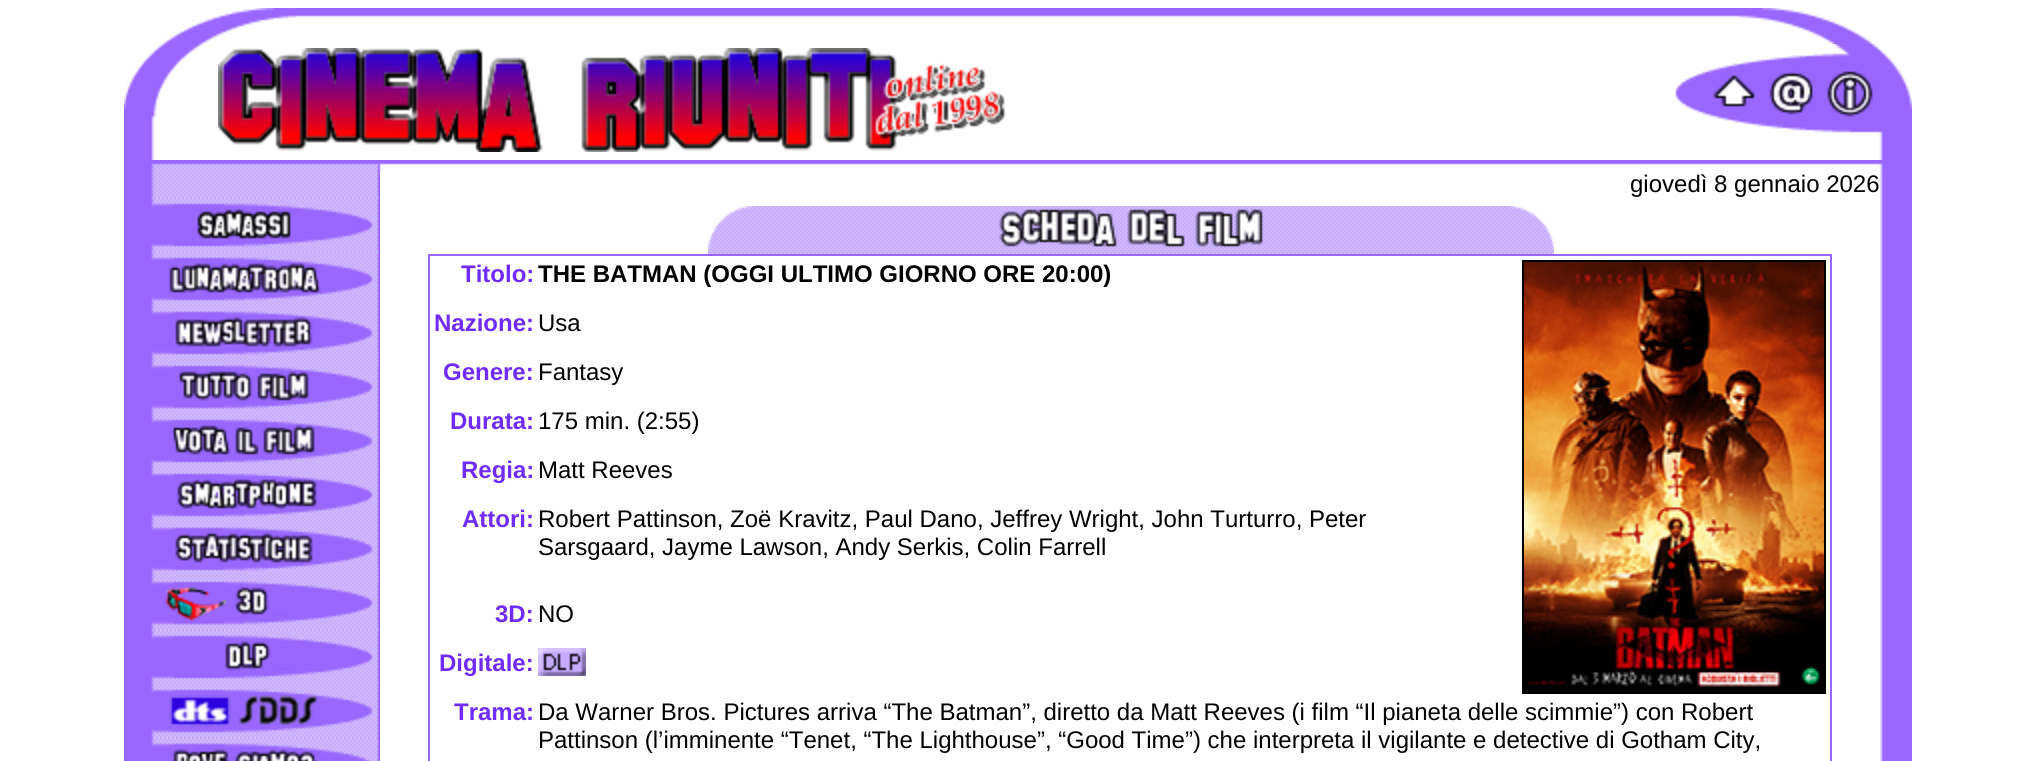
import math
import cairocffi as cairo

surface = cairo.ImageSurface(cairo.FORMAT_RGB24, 2036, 761)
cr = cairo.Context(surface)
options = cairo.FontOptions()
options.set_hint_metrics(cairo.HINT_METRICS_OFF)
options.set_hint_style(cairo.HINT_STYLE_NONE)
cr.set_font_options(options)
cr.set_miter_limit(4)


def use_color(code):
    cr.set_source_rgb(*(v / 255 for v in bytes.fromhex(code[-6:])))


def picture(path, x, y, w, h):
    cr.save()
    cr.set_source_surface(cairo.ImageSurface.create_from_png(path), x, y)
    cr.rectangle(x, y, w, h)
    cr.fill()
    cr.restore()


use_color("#ffffff")
cr.paint()
picture("img1.png", 124, 17, 88, 143)
picture("img2.png", 212, 8, 1661, 36)
picture("img3.png", 218, 48, 788, 104)
picture("img4.png", 1675, 44, 237, 116)
picture("img5.png", 124, 160, 1788, 10)
picture("img6.png", 124, 170, 256, 28)
cr.select_font_face("Liberation Sans")
cr.set_font_size(24)
use_color("#000000")
cr.move_to(1630, 192)
cr.show_text("giovedì 8 gennaio 2026")
picture("img7.png", 1880, 170, 32, 28)
picture("img8.png", 124, 198, 256, 563)
picture("img9.png", 151, 198, 228, 54)
picture("img10.png", 151, 252, 227, 54)
picture("img11.png", 151, 306, 227, 54)
picture("img12.png", 151, 360, 227, 54)
picture("img13.png", 151, 414, 227, 54)
picture("img14.png", 151, 468, 227, 54)
picture("img15.png", 151, 522, 227, 54)
picture("img16.png", 151, 576, 227, 54)
picture("img17.png", 151, 630, 228, 54)
picture("img18.png", 151, 684, 228, 54)
picture("img19.png", 151, 738, 227, 23)
picture("img20.png", 708, 206, 846, 48)
use_color("#9866ff")
cr.rectangle(428, 254, 1404, 507)
cr.fill()
use_color("#ffffff")
cr.rectangle(430, 256, 1400, 505)
cr.fill()
cr.select_font_face("Liberation Sans", cairo.FONT_SLANT_NORMAL, cairo.FONT_WEIGHT_BOLD)
use_color("#702bff")
cr.move_to(461, 282)
cr.show_text("Titolo:")
use_color("#000000")
cr.move_to(538, 282)
cr.show_text("THE BATMAN (OGGI ULTIMO GIORNO ORE 20:00)")
cr.rectangle(1523, 261, 302, 432)
cr.stroke()
picture("img21.png", 1524, 262, 300, 430)
use_color("#702bff")
cr.move_to(434, 331)
cr.show_text("Nazione:")
cr.select_font_face("Liberation Sans")
use_color("#000000")
cr.move_to(538, 331)
cr.show_text("Usa")
cr.select_font_face("Liberation Sans", cairo.FONT_SLANT_NORMAL, cairo.FONT_WEIGHT_BOLD)
use_color("#702bff")
cr.move_to(443, 380)
cr.show_text("Genere:")
cr.select_font_face("Liberation Sans")
use_color("#000000")
cr.move_to(538, 380)
cr.show_text("Fantasy")
cr.select_font_face("Liberation Sans", cairo.FONT_SLANT_NORMAL, cairo.FONT_WEIGHT_BOLD)
use_color("#702bff")
cr.move_to(450, 429)
cr.show_text("Durata:")
cr.select_font_face("Liberation Sans")
use_color("#000000")
cr.move_to(538, 429)
cr.show_text("175 min. (2:55)")
cr.select_font_face("Liberation Sans", cairo.FONT_SLANT_NORMAL, cairo.FONT_WEIGHT_BOLD)
use_color("#702bff")
cr.move_to(461, 478)
cr.show_text("Regia:")
cr.select_font_face("Liberation Sans")
use_color("#000000")
cr.move_to(538, 478)
cr.show_text("Matt Reeves")
cr.select_font_face("Liberation Sans", cairo.FONT_SLANT_NORMAL, cairo.FONT_WEIGHT_BOLD)
use_color("#702bff")
cr.move_to(462, 527)
cr.show_text("Attori:")
cr.select_font_face("Liberation Sans")
use_color("#000000")
cr.move_to(538, 527)
cr.show_text("Robert Pattinson, Zoë Kravitz, Paul Dano, Jeffrey Wright, John Turturro, Peter")
cr.move_to(538, 555)
cr.show_text("Sarsgaard, Jayme Lawson, Andy Serkis, Colin Farrell")
cr.select_font_face("Liberation Sans", cairo.FONT_SLANT_NORMAL, cairo.FONT_WEIGHT_BOLD)
use_color("#702bff")
cr.move_to(495, 622)
cr.show_text("3D:")
cr.select_font_face("Liberation Sans")
use_color("#000000")
cr.move_to(538, 622)
cr.show_text("NO")
cr.select_font_face("Liberation Sans", cairo.FONT_SLANT_NORMAL, cairo.FONT_WEIGHT_BOLD)
use_color("#702bff")
cr.move_to(439, 671)
cr.show_text("Digitale:")
picture("img22.png", 538, 648, 48, 28)
cr.move_to(454, 720)
cr.show_text("Trama:")
cr.select_font_face("Liberation Sans")
use_color("#000000")
cr.move_to(538, 720)
cr.show_text("Da Warner Bros. Pictures arriva “The Batman”, diretto da Matt Reeves (i film “Il pianeta delle scimmie”) con Robert")
cr.move_to(538, 748)
cr.show_text("Pattinson (l’imminente “Tenet, “The Lighthouse”, “Good Time”) che interpreta il vigilante e detective di Gotham City,")
picture("img23.png", 1880, 198, 32, 563)
surface.write_to_png("result.png")
